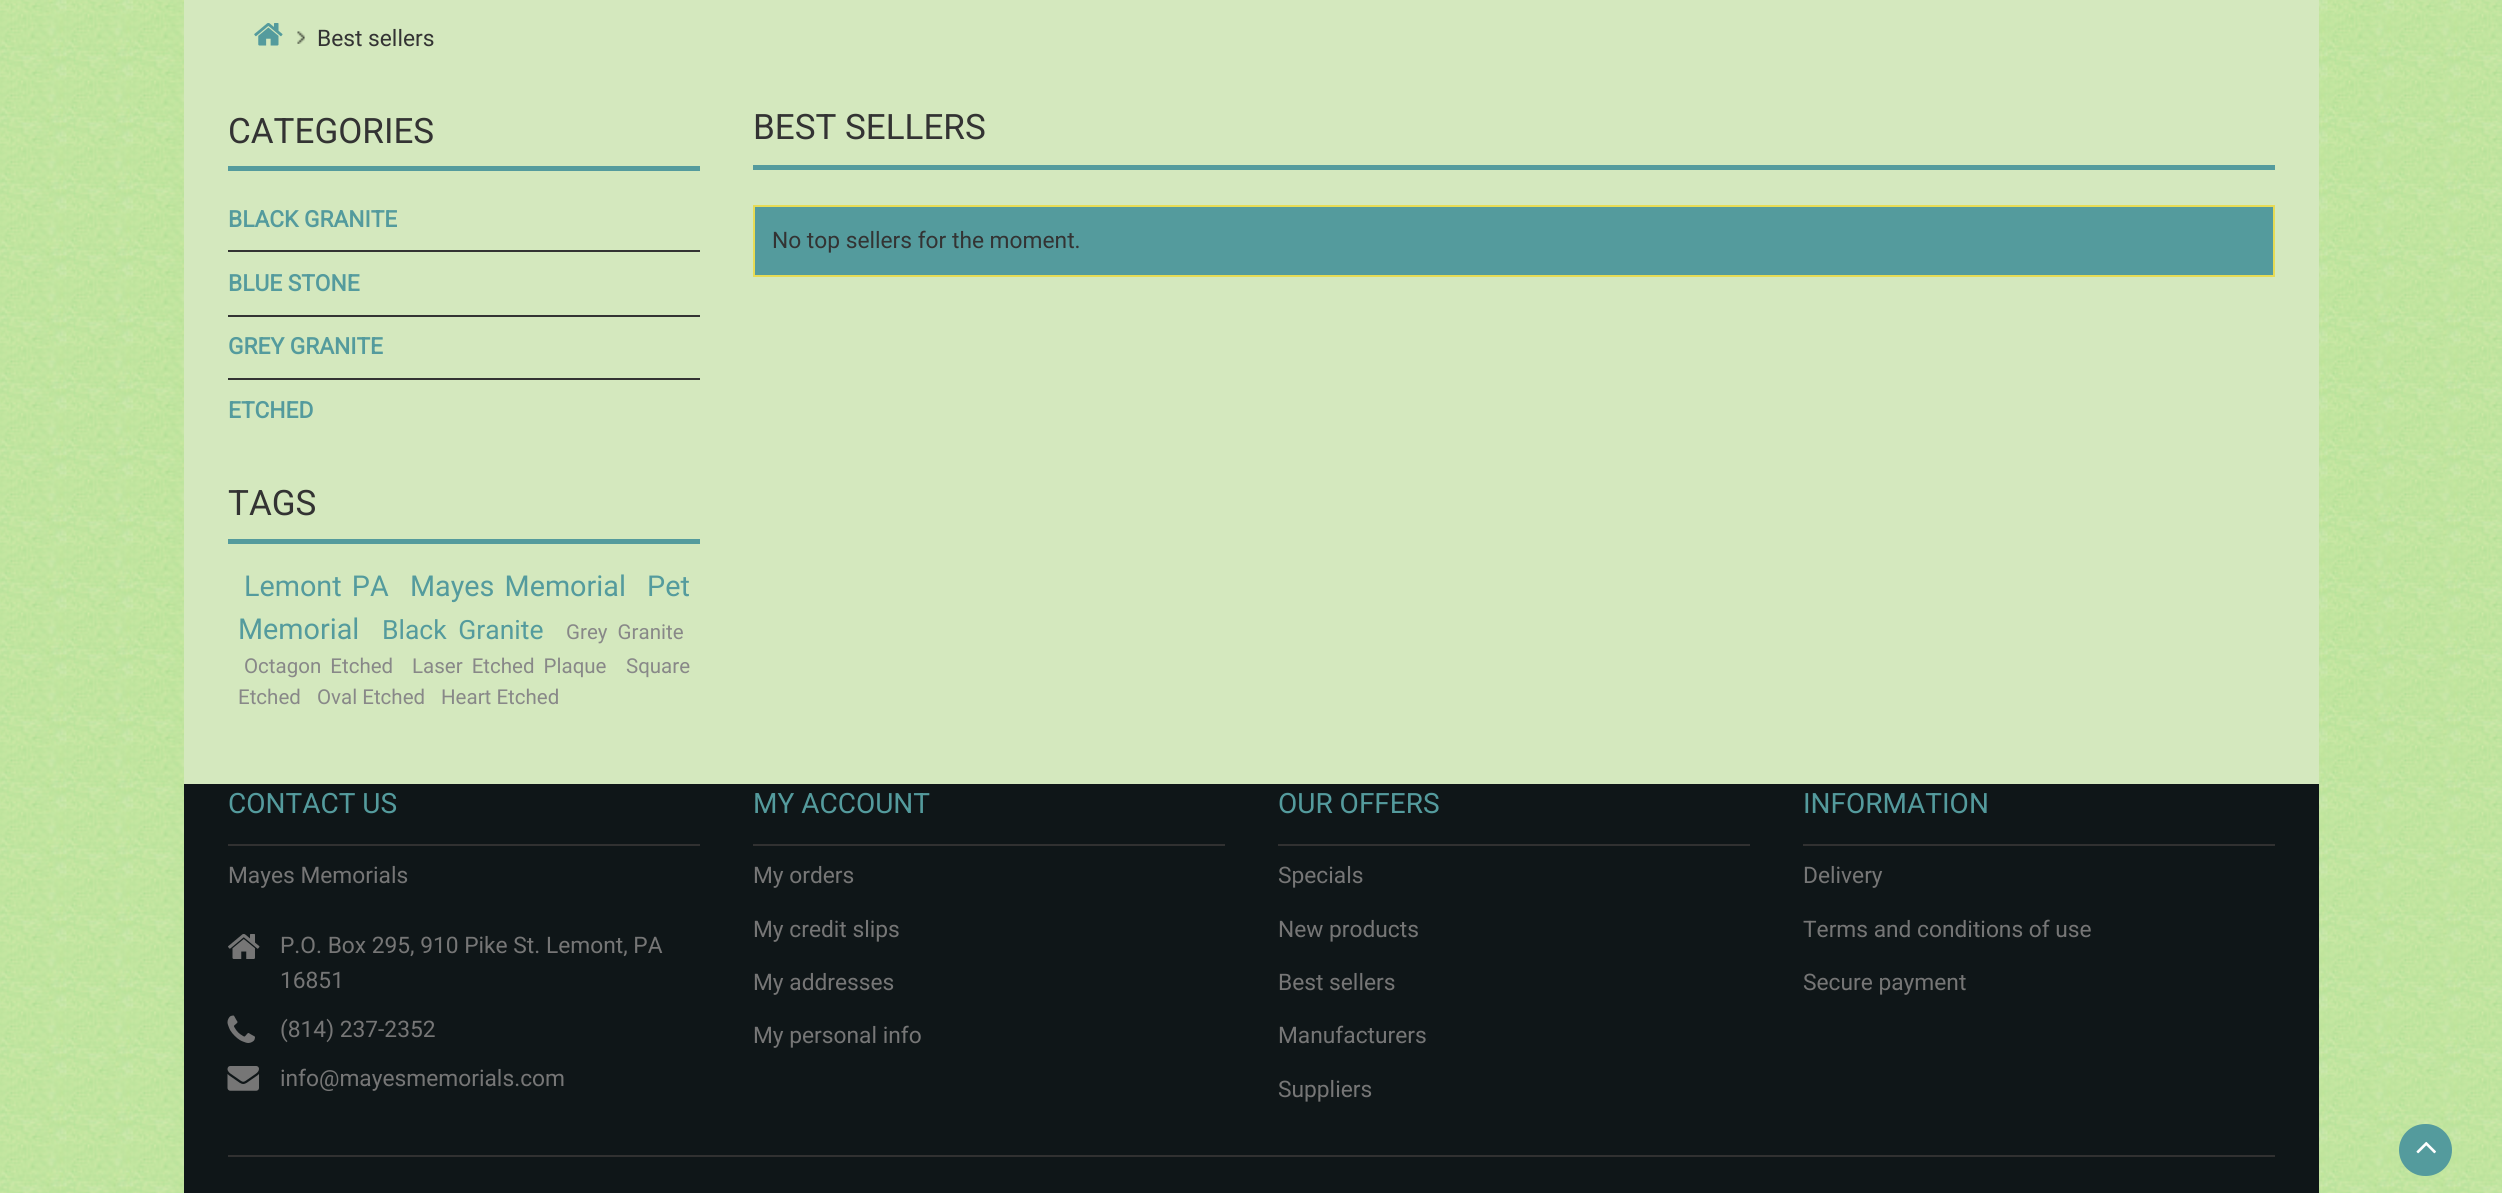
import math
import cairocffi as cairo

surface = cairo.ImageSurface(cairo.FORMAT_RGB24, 2502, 1193)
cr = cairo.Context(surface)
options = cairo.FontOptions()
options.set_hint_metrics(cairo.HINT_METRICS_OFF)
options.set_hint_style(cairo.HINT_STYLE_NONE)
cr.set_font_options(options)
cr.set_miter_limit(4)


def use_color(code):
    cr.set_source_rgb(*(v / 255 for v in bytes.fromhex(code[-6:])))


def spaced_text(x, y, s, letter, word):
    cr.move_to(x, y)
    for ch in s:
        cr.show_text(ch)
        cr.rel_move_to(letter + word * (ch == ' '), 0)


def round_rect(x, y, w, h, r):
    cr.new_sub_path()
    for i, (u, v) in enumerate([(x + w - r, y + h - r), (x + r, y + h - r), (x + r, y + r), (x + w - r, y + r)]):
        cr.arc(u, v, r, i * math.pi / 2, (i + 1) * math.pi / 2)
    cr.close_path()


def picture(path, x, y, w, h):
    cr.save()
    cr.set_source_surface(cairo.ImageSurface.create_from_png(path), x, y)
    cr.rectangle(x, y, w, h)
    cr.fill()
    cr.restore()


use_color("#ffffff")
cr.paint()
picture("img1.png", 0, 0, 2502, 1193)
use_color("#d4e8be")
cr.rectangle(184, 0, 2135, 784)
cr.fill()
picture("img2.png", 254, 23, 29, 23)
picture("img3.png", 297, 31, 8, 13)
cr.select_font_face("Roboto")
cr.set_font_size(22.75)
use_color("#333333")
cr.move_to(317, 46)
cr.show_text("Best sellers")
use_color("#549b9d")
cr.rectangle(228, 166, 472, 5)
cr.fill()
cr.set_font_size(35)
use_color("#333333")
cr.move_to(228, 143)
cr.show_text("CATEGORIES")
cr.select_font_face("Roboto", cairo.FONT_SLANT_NORMAL, cairo.FONT_WEIGHT_BOLD)
cr.set_font_size(22.75)
use_color("#549b9d")
cr.move_to(228, 227)
cr.show_text("BLACK GRANITE")
use_color("#333333")
cr.rectangle(228, 250, 472, 2)
cr.fill()
use_color("#549b9d")
cr.move_to(228, 291)
cr.show_text("BLUE STONE")
use_color("#333333")
cr.rectangle(228, 315, 472, 2)
cr.fill()
use_color("#549b9d")
cr.move_to(228, 354)
cr.show_text("GREY GRANITE")
use_color("#333333")
cr.rectangle(228, 378, 472, 2)
cr.fill()
use_color("#549b9d")
cr.move_to(228, 418)
cr.show_text("ETCHED")
cr.rectangle(228, 539, 472, 5)
cr.fill()
cr.select_font_face("Roboto")
cr.set_font_size(35)
use_color("#333333")
cr.move_to(228, 515)
cr.show_text("TAGS")
cr.set_font_size(28.75)
use_color("#549b9d")
spaced_text(244, 596, "Lemont PA", 0, 3)
spaced_text(410, 596, "Mayes Memorial", 0, 3)
cr.move_to(647, 596)
cr.show_text("Pet")
cr.move_to(238, 639)
cr.show_text("Memorial")
cr.set_font_size(26.5)
spaced_text(382, 639, "Black Granite", 0, 5)
cr.set_font_size(20.5)
use_color("#888888")
spaced_text(566, 639, "Grey Granite", 0, 5)
spaced_text(244, 673, "Octagon Etched", 0, 4)
spaced_text(412, 673, "Laser Etched Plaque", 0, 4)
cr.move_to(626, 673)
cr.show_text("Square")
cr.move_to(238, 704)
cr.show_text("Etched")
cr.move_to(317, 704)
cr.show_text("Oval Etched")
cr.move_to(441, 704)
cr.show_text("Heart Etched")
use_color("#549b9d")
cr.rectangle(753, 165, 1522, 5)
cr.fill()
cr.set_font_size(35)
use_color("#333333")
cr.move_to(753, 139)
cr.show_text("BEST SELLERS")
use_color("#549b9d")
cr.rectangle(754, 206, 1520, 70)
cr.fill_preserve()
use_color("#e6db55")
cr.stroke()
cr.set_font_size(22.75)
use_color("#333333")
cr.move_to(772, 248)
cr.show_text("No top sellers for the moment.")
use_color("#0f1618")
cr.rectangle(184, 784, 2135, 409)
cr.fill()
use_color("#313131")
cr.rectangle(228, 844, 472, 2)
cr.fill()
cr.set_font_size(28)
use_color("#549b9d")
cr.move_to(228, 813)
cr.show_text("CONTACT US")
cr.set_font_size(22.75)
use_color("#767676")
cr.move_to(228, 883)
cr.show_text("Mayes Memorials")
picture("img4.png", 228, 934, 32, 25)
cr.move_to(280, 953)
cr.show_text("P.O. Box 295, 910 Pike St. Lemont, PA")
cr.move_to(280, 988)
cr.show_text("16851")
picture("img5.png", 227, 1015, 28, 28)
cr.move_to(280, 1037)
cr.show_text("(814) 237-2352")
picture("img6.png", 227, 1066, 32, 25)
cr.move_to(280, 1086)
cr.show_text("info@mayesmemorials.com")
use_color("#313131")
cr.rectangle(753, 844, 472, 2)
cr.fill()
cr.set_font_size(28)
use_color("#549b9d")
cr.move_to(753, 813)
cr.show_text("MY ACCOUNT")
cr.set_font_size(22.75)
use_color("#767676")
cr.move_to(753, 883)
cr.show_text("My orders")
cr.move_to(753, 937)
cr.show_text("My credit slips")
cr.move_to(753, 990)
cr.show_text("My addresses")
cr.move_to(753, 1043)
cr.show_text("My personal info")
use_color("#313131")
cr.rectangle(1278, 844, 472, 2)
cr.fill()
cr.set_font_size(28)
use_color("#549b9d")
cr.move_to(1278, 813)
cr.show_text("OUR OFFERS")
cr.set_font_size(22.75)
use_color("#767676")
cr.move_to(1278, 883)
cr.show_text("Specials")
cr.move_to(1278, 937)
cr.show_text("New products")
cr.move_to(1278, 990)
cr.show_text("Best sellers")
cr.move_to(1278, 1043)
cr.show_text("Manufacturers")
cr.move_to(1278, 1097)
cr.show_text("Suppliers")
use_color("#313131")
cr.rectangle(1803, 844, 472, 2)
cr.fill()
cr.set_font_size(28)
use_color("#549b9d")
cr.move_to(1803, 813)
cr.show_text("INFORMATION")
cr.set_font_size(22.75)
use_color("#767676")
cr.move_to(1803, 883)
cr.show_text("Delivery")
cr.move_to(1803, 937)
cr.show_text("Terms and conditions of use")
cr.move_to(1803, 990)
cr.show_text("Secure payment")
use_color("#313131")
cr.rectangle(228, 1155, 2047, 2)
cr.fill()
use_color("#549b9d")
round_rect(2399, 1124, 53, 52, 26)
cr.fill()
picture("img7.png", 2416, 1141, 20, 13)
surface.write_to_png("result.png")
